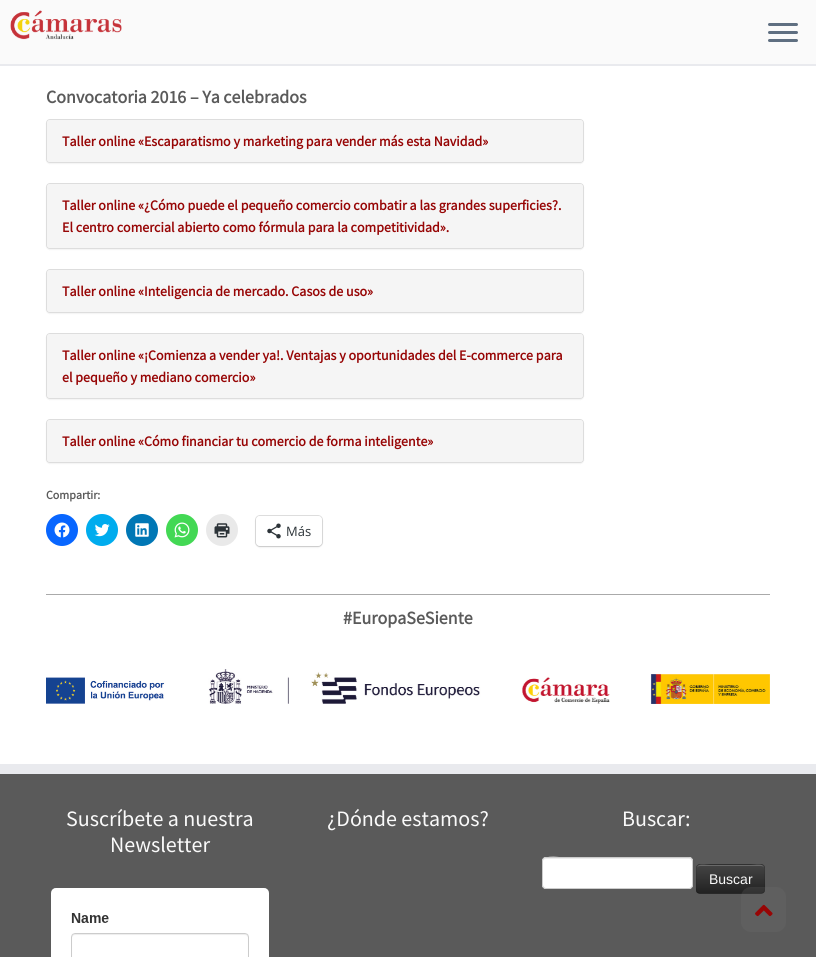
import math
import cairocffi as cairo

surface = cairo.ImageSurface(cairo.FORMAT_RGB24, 816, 957)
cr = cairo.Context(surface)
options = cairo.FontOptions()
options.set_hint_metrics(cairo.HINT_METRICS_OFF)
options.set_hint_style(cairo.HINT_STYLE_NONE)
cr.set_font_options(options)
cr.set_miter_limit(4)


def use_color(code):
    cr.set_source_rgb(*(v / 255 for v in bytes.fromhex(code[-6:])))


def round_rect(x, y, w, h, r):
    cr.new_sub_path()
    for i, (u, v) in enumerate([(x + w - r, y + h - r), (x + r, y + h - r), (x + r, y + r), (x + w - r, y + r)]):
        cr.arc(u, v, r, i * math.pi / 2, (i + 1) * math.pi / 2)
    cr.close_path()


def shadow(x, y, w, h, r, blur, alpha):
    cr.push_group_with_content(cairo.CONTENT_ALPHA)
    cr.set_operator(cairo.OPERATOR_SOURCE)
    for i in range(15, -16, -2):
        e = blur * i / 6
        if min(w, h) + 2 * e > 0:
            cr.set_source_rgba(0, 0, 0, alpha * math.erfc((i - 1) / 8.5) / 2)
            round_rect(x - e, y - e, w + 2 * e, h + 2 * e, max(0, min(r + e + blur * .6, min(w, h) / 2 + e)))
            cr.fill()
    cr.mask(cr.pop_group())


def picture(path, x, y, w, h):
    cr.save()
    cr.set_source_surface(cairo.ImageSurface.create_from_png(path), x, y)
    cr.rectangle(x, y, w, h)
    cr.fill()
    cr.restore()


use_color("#ffffff")
cr.paint()
use_color("#fafafa")
cr.rectangle(0, 0, 816, 64)
cr.fill()
use_color("#e9eaee")
cr.rectangle(0, 64, 816, 2)
cr.fill()
picture("img1.png", 10, 10, 112, 30)
use_color("#5f6f81")
round_rect(768, 23, 30, 3, 1.5)
cr.fill()
round_rect(768, 31, 30, 3, 1.5)
cr.fill()
round_rect(768, 39, 30, 3, 1.5)
cr.fill()
cr.select_font_face("Source Sans Pro", cairo.FONT_SLANT_NORMAL, cairo.FONT_WEIGHT_BOLD)
cr.set_font_size(18)
use_color("#5a5a5a")
cr.move_to(46, 103)
cr.show_text("Convocatoria 2016 – Ya celebrados")
use_color("#000000")
shadow(46, 120, 538, 44, 4, 0.5, 0.05)
round_rect(46.5, 119.5, 537, 43, 3.5)
use_color("#dddddd")
cr.set_line_width(1)
cr.stroke()
use_color("#f5f5f5")
round_rect(47, 120, 536, 42, 3)
cr.fill()
cr.set_font_size(14)
use_color("#970505")
cr.move_to(62, 146)
cr.show_text("Taller online «Escaparatismo y marketing para vender más esta Navidad»")
use_color("#000000")
shadow(46, 184, 538, 66, 4, 0.5, 0.05)
round_rect(46.5, 183.5, 537, 65, 3.5)
use_color("#dddddd")
cr.stroke()
use_color("#f5f5f5")
round_rect(47, 184, 536, 64, 3)
cr.fill()
use_color("#970505")
cr.move_to(62, 210)
cr.show_text("Taller online «¿Cómo puede el pequeño comercio combatir a las grandes superficies?.")
cr.move_to(62, 232)
cr.show_text("El centro comercial abierto como fórmula para la competitividad».")
use_color("#000000")
shadow(46, 270, 538, 44, 4, 0.5, 0.05)
round_rect(46.5, 269.5, 537, 43, 3.5)
use_color("#dddddd")
cr.stroke()
use_color("#f5f5f5")
round_rect(47, 270, 536, 42, 3)
cr.fill()
use_color("#970505")
cr.move_to(62, 296)
cr.show_text("Taller online «Inteligencia de mercado. Casos de uso»")
use_color("#000000")
shadow(46, 334, 538, 66, 4, 0.5, 0.05)
round_rect(46.5, 333.5, 537, 65, 3.5)
use_color("#dddddd")
cr.stroke()
use_color("#f5f5f5")
round_rect(47, 334, 536, 64, 3)
cr.fill()
use_color("#970505")
cr.move_to(62, 360)
cr.show_text("Taller online «¡Comienza a vender ya!. Ventajas y oportunidades del E-commerce para")
cr.move_to(62, 382)
cr.show_text("el pequeño y mediano comercio»")
use_color("#000000")
shadow(46, 420, 538, 44, 4, 0.5, 0.05)
round_rect(46.5, 419.5, 537, 43, 3.5)
use_color("#dddddd")
cr.stroke()
use_color("#f5f5f5")
round_rect(47, 420, 536, 42, 3)
cr.fill()
use_color("#970505")
cr.move_to(62, 446)
cr.show_text("Taller online «Cómo financiar tu comercio de forma inteligente»")
cr.set_font_size(12)
use_color("#5a5a5a")
cr.move_to(46, 499)
cr.show_text("Compartir:")
use_color("#0866ff")
cr.new_path()
cr.arc(62, 530, 16, 0, 2 * math.pi)
cr.fill()
picture("img2.png", 54, 522, 16, 16)
use_color("#00acee")
cr.arc(102, 530, 16, 0, 2 * math.pi)
cr.fill()
picture("img3.png", 94, 524, 16, 13)
use_color("#0077b5")
cr.arc(142, 530, 16, 0, 2 * math.pi)
cr.fill()
picture("img4.png", 135, 523, 14, 14)
use_color("#43d854")
cr.arc(182, 530, 16, 0, 2 * math.pi)
cr.fill()
picture("img5.png", 174, 522, 16, 16)
use_color("#e9e9e9")
cr.arc(222, 530, 16, 0, 2 * math.pi)
cr.fill()
picture("img6.png", 214, 523, 16, 15)
round_rect(255.5, 515.5, 67, 31, 4.5)
use_color("#e0e0e0")
cr.stroke()
use_color("#000000")
shadow(256, 517, 66, 30, 4, 1, 0.12)
use_color("#ffffff")
round_rect(256, 516, 66, 30, 4)
cr.fill()
picture("img7.png", 267, 523, 14, 16)
cr.select_font_face("Open Sans")
cr.set_font_size(13)
use_color("#2c3338")
cr.move_to(286, 536)
cr.show_text("Más")
use_color("#aaaaaa")
cr.rectangle(46, 594, 724, 1)
cr.fill()
cr.select_font_face("Source Sans Pro", cairo.FONT_SLANT_NORMAL, cairo.FONT_WEIGHT_BOLD)
cr.set_font_size(18)
use_color("#5a5a5a")
cr.move_to(343, 624)
cr.show_text("#EuropaSeSiente")
picture("img8.png", 46, 669, 724, 35)
cr.rectangle(0, 774, 816, 183)
cr.fill()
use_color("#e9eaee")
cr.rectangle(0, 764, 816, 10)
cr.fill()
cr.select_font_face("Source Sans Pro")
cr.set_font_size(22)
use_color("#fafafa")
cr.move_to(66, 826)
cr.show_text("Suscríbete a nuestra")
cr.move_to(110, 852)
cr.show_text("Newsletter")
picture("img9.png", 51, 888, 218, 69)
cr.move_to(327, 826)
cr.show_text("¿Dónde estamos?")
cr.move_to(622, 826)
cr.show_text("Buscar:")
use_color("#ffffff")
round_rect(542, 857, 151, 32, 4)
cr.fill()
use_color("#ececec")
cr.new_path()
cr.move_to(546, 859)
cr.line_to(689, 859)
cr.curve_to(691, 859, 692, 860, 692, 862)
cr.curve_to(692, 860, 692, 859, 690, 858)
cr.line_to(570, 858)
cr.curve_to(562, 858, 543, 853, 543, 862)
cr.curve_to(543, 860, 544, 859, 546, 859)
cr.close_path()
cr.fill()
round_rect(542.5, 857.5, 150, 31, 3.5)
use_color("#cccccc")
cr.stroke()
use_color("#363636")
round_rect(696, 864, 69, 30, 4)
cr.fill()
cr.save()
round_rect(696, 864, 69, 30, 4)
cr.clip()
gradient = cairo.LinearGradient(731, 865, 731, 893)
gradient.add_color_stop_rgba(0, 0.267, 0.267, 0.267, 1)
gradient.add_color_stop_rgba(1, 0.133, 0.133, 0.133, 1)
cr.set_source(gradient)
cr.rectangle(696, 865, 69, 28)
cr.fill()
cr.restore()
cr.set_source_rgba(1, 1, 1, 0.2)
cr.new_path()
cr.move_to(700, 866)
cr.line_to(761, 866)
cr.curve_to(763, 866, 764, 867, 764, 869)
cr.curve_to(764, 862, 755, 865, 751, 865)
cr.line_to(710, 865)
cr.curve_to(706, 865, 697, 862, 697, 869)
cr.curve_to(697, 867, 698, 866, 700, 866)
cr.close_path()
cr.fill()
cr.new_path()
cr.move_to(763.5, 892.5)
cr.line_to(761.5, 893.5)
cr.line_to(699.5, 893.5)
cr.line_to(697.5, 892.5)
cr.set_source_rgba(0, 0, 0, 0.25)
cr.stroke()
cr.new_path()
cr.move_to(697.5, 892.5)
cr.curve_to(695.5, 890.5, 696.5, 882, 696.5, 879)
cr.curve_to(696.5, 863, 694, 864.5, 710, 864.5)
cr.line_to(751, 864.5)
cr.curve_to(767, 864.5, 764.5, 863, 764.5, 879)
cr.curve_to(764.5, 882, 765.5, 890.5, 763.5, 892.5)
cr.set_source_rgba(0, 0, 0, 0.1)
cr.stroke()
cr.select_font_face("Liberation Sans")
cr.set_font_size(14)
use_color("#fafafa")
cr.move_to(709, 884)
cr.show_text("Buscar")
cr.set_source_rgba(0.467, 0.467, 0.467, 0.2)
round_rect(741, 887, 45, 45, 10)
cr.fill()
picture("img10.png", 755, 904, 18, 13)
surface.write_to_png("result.png")
